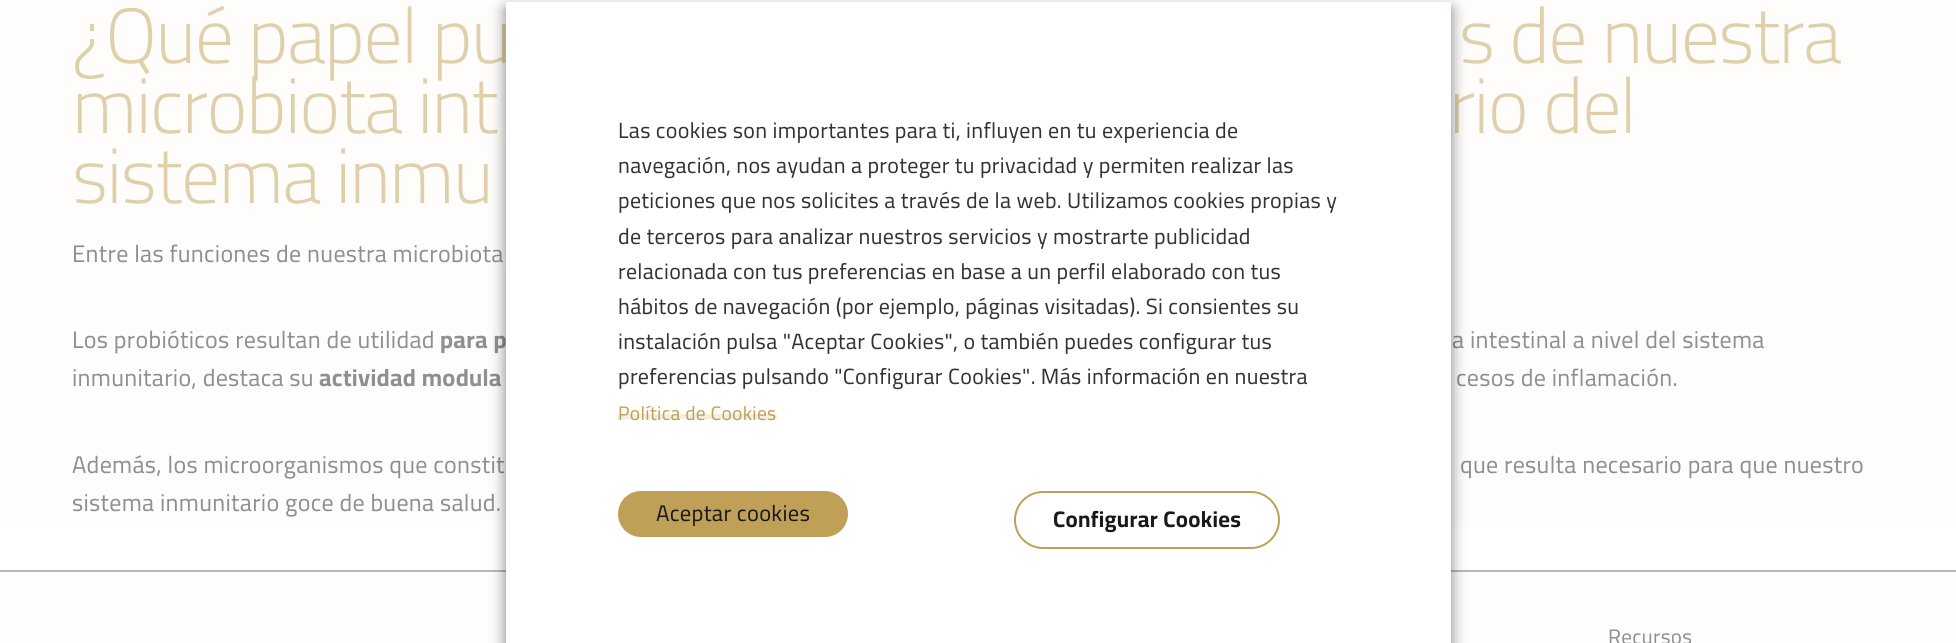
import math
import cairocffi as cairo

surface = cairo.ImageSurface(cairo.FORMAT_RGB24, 1956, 643)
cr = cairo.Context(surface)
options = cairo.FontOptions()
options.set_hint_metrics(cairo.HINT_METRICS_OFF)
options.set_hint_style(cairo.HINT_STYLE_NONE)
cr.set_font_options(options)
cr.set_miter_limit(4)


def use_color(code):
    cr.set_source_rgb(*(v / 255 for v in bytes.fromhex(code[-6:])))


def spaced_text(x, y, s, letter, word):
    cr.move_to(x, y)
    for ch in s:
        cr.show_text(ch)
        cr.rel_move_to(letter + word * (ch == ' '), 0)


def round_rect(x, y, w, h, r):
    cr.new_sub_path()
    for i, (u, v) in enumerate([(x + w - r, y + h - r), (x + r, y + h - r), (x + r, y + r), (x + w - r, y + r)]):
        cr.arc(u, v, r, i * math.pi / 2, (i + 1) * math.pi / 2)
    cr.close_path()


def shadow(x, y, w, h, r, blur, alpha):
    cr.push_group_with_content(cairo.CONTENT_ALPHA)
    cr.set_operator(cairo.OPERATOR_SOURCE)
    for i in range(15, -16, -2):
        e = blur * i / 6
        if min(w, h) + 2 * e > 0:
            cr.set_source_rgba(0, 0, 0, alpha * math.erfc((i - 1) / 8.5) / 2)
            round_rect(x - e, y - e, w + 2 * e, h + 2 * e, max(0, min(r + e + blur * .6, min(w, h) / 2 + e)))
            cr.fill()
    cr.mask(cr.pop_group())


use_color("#ffffff")
cr.paint()
use_color("#fefdfb")
cr.rectangle(0, 0, 1956, 522)
cr.fill()
cr.select_font_face("Cairo Light")
cr.set_font_size(78)
use_color("#dfd0ab")
spaced_text(72, 63, "¿Qué papel pu", -1.5, 0)
spaced_text(1459, 63, "s de nuestra", -1.5, 0)
spaced_text(72, 133, "microbiota int", -1.5, 0)
spaced_text(1449, 133, "rio del", -1.5, 0)
spaced_text(72, 203, "sistema inmu", -1.5, 0)
cr.select_font_face("Cairo")
cr.set_font_size(24)
use_color("#8f8f8f")
spaced_text(72, 262, "Entre las funciones de nuestra microbiota", 0.3, 0)
spaced_text(72, 348, "Los probióticos resultan de utilidad", 0.3, 0)
cr.select_font_face("Cairo", cairo.FONT_SLANT_NORMAL, cairo.FONT_WEIGHT_BOLD)
spaced_text(440, 348, "para p", 0.3, 0)
cr.select_font_face("Cairo")
spaced_text(1452, 348, "a intestinal a nivel del sistema", 0.3, 0)
spaced_text(72, 386, "inmunitario, destaca su", 0.3, 0)
cr.select_font_face("Cairo", cairo.FONT_SLANT_NORMAL, cairo.FONT_WEIGHT_BOLD)
spaced_text(319, 386, "actividad modula", 0.3, 0)
cr.select_font_face("Cairo")
spaced_text(1456, 386, "cesos de inflamación.", 0.3, 0)
spaced_text(72, 473, "Además, los microorganismos que constit", 0.3, 0)
spaced_text(1460, 473, "que resulta necesario para que nuestro", 0.3, 0)
spaced_text(72, 511, "sistema inmunitario goce de buena salud.", 0.3, 0)
use_color("#fefdfb")
cr.rectangle(0, 572, 1956, 71)
cr.fill()
use_color("#b8b8b8")
cr.rectangle(0, 570, 1956, 2)
cr.fill()
cr.set_font_size(21)
use_color("#8f8f8f")
spaced_text(1608, 644, "Recursos", 0.3, 0)
cr.save()
cr.set_fill_rule(cairo.FILL_RULE_EVEN_ODD)
cr.new_path()
cr.move_to(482, 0)
cr.line_to(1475, 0)
cr.line_to(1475, 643)
cr.line_to(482, 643)
cr.close_path()
cr.move_to(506, 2)
cr.line_to(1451, 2)
cr.line_to(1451, 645)
cr.line_to(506, 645)
cr.close_path()
cr.clip()
use_color("#000000")
shadow(506, 9, 945, 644, 0, 7.5, 0.5)
cr.restore()
use_color("#ffffff")
cr.rectangle(506, 2, 945, 641)
cr.fill()
cr.set_font_size(22)
use_color("#333333")
spaced_text(618, 138, "Las cookies son importantes para ti, influyen en tu experiencia de", 0.3, 0)
spaced_text(618, 173, "navegación, nos ayudan a proteger tu privacidad y permiten realizar las", 0.3, 0)
spaced_text(618, 208, "peticiones que nos solicites a través de la web. Utilizamos cookies propias y", 0.3, 0)
spaced_text(618, 244, "de terceros para analizar nuestros servicios y mostrarte publicidad", 0.3, 0)
spaced_text(618, 279, "relacionada con tus preferencias en base a un perfil elaborado con tus", 0.3, 0)
spaced_text(618, 314, "hábitos de navegación (por ejemplo, páginas visitadas). Si consientes su", 0.3, 0)
spaced_text(618, 349, "instalación pulsa \"Aceptar Cookies\", o también puedes configurar tus", 0.3, 0)
spaced_text(618, 384, "preferencias pulsando \"Configurar Cookies\". Más información en nuestra", 0.3, 0)
use_color("#f4eee1")
cr.rectangle(618, 414, 159, 5)
cr.fill()
cr.set_font_size(19.5)
use_color("#bfa056")
spaced_text(618, 420, "Política de Cookies", 0.3, 0)
round_rect(618, 491, 230, 46, 23)
cr.fill()
cr.set_font_size(22.5)
use_color("#17191c")
spaced_text(656, 521, "Aceptar cookies", 0.3, 0)
round_rect(1015, 492, 264, 56, 28)
use_color("#bfa056")
cr.stroke()
cr.select_font_face("Cairo", cairo.FONT_SLANT_NORMAL, cairo.FONT_WEIGHT_BOLD)
use_color("#17191c")
spaced_text(1053, 527, "Configurar Cookies", 0.3, 0)
surface.write_to_png("result.png")
